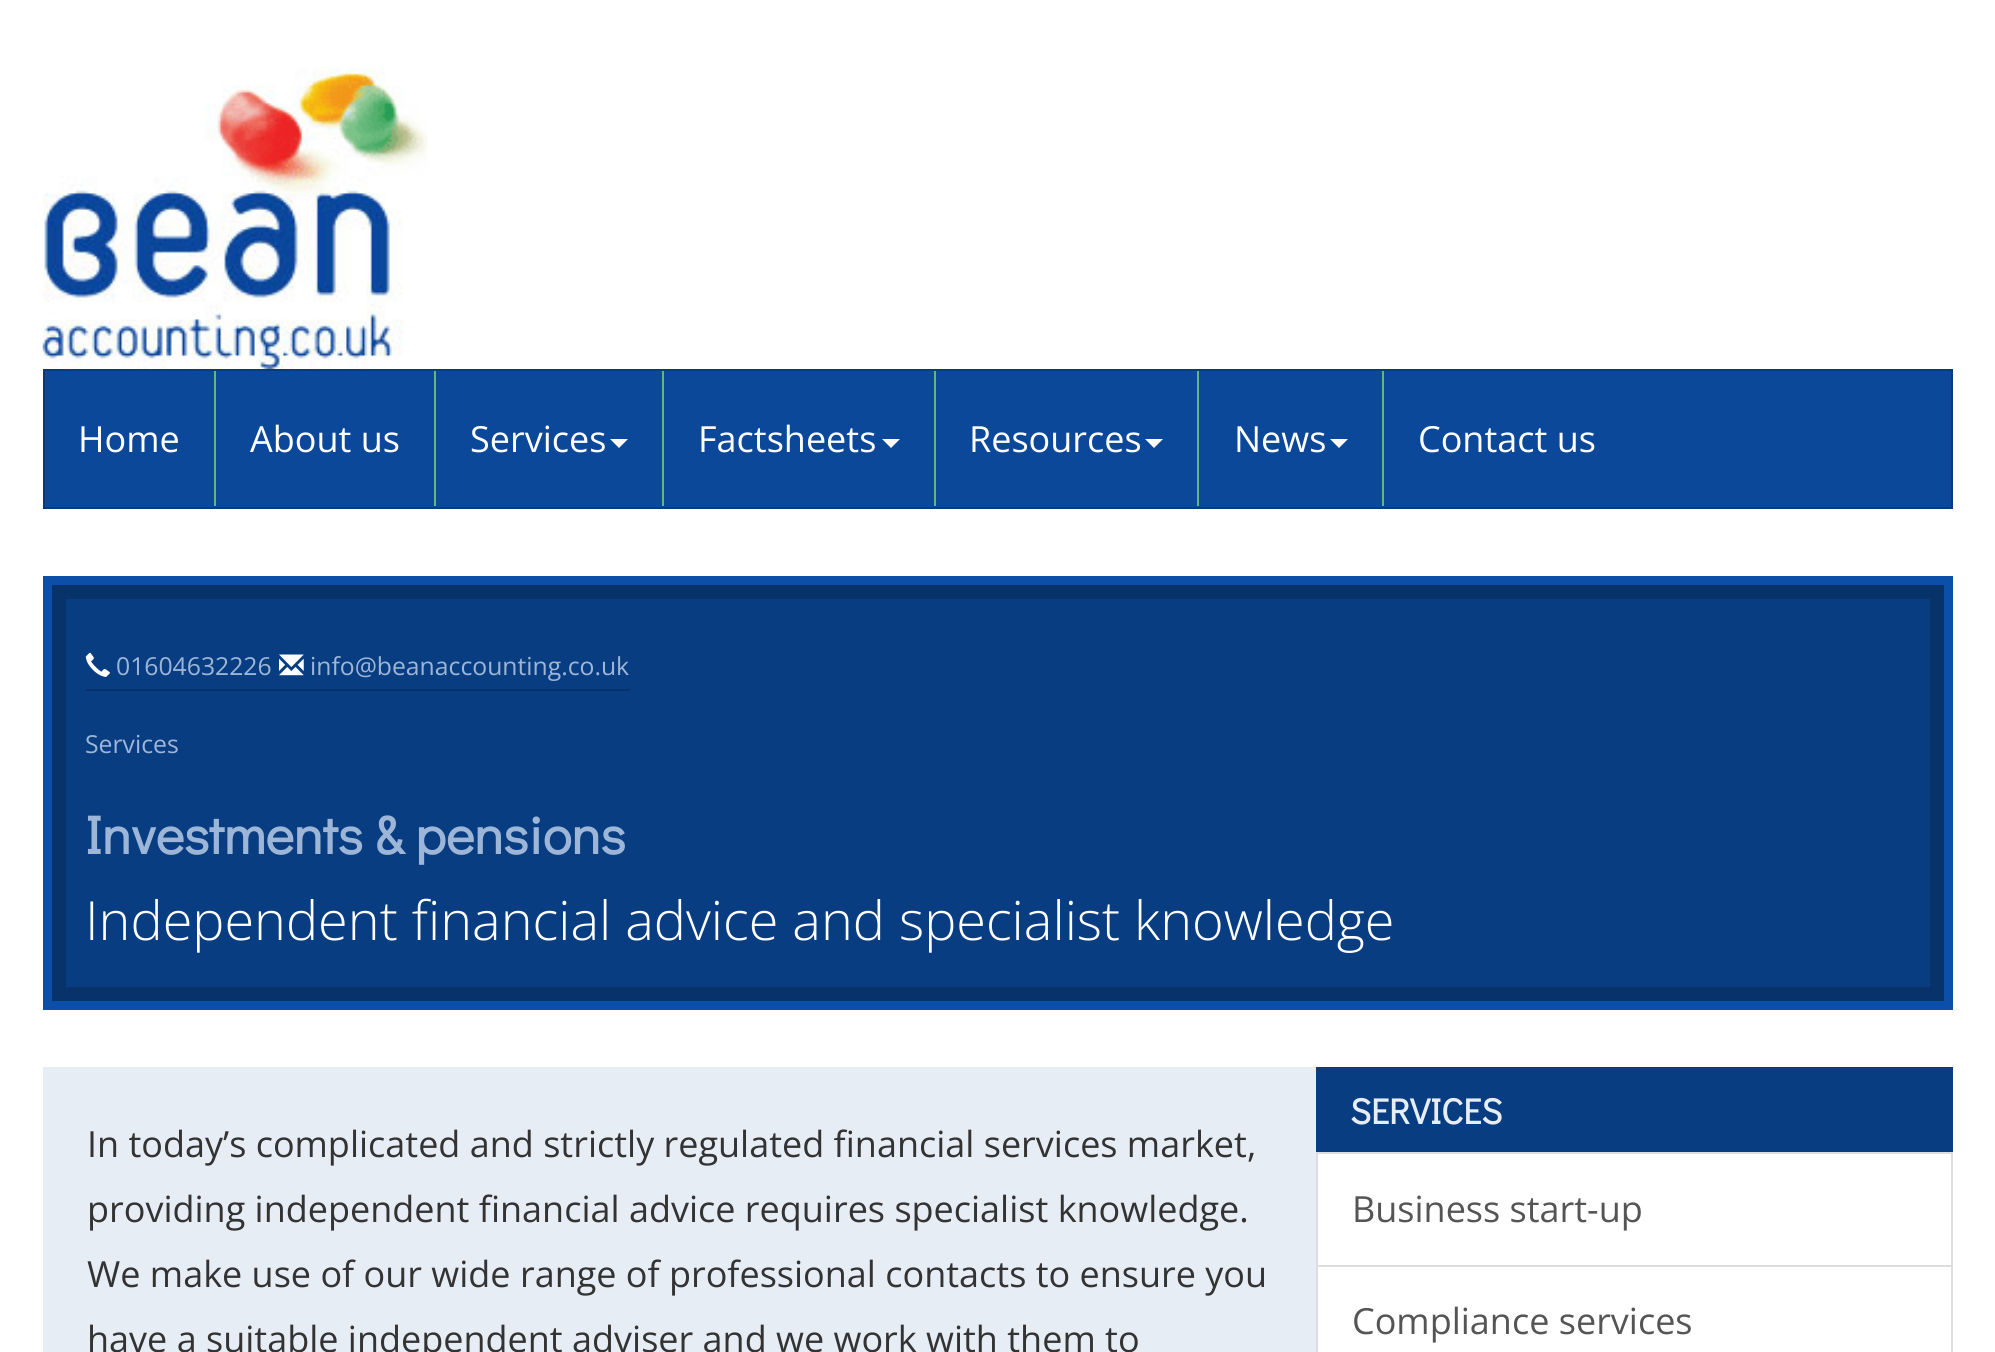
import math
import cairocffi as cairo

surface = cairo.ImageSurface(cairo.FORMAT_RGB24, 1995, 1352)
cr = cairo.Context(surface)
options = cairo.FontOptions()
options.set_hint_metrics(cairo.HINT_METRICS_OFF)
options.set_hint_style(cairo.HINT_STYLE_NONE)
cr.set_font_options(options)
cr.set_miter_limit(4)


def use_color(code):
    cr.set_source_rgb(*(v / 255 for v in bytes.fromhex(code[-6:])))


def picture(path, x, y, w, h):
    cr.save()
    cr.set_source_surface(cairo.ImageSurface.create_from_png(path), x, y)
    cr.rectangle(x, y, w, h)
    cr.fill()
    cr.restore()


use_color("#ffffff")
cr.paint()
picture("img1.png", 42, 67, 386, 302)
use_color("#0b489a")
cr.rectangle(44, 370, 1908, 138)
cr.fill_preserve()
use_color("#093a7b")
cr.stroke()
cr.select_font_face("Open Sans")
cr.set_font_size(36)
use_color("#ffffff")
cr.move_to(78, 452)
cr.show_text("Home")
use_color("#64b777")
cr.rectangle(214, 371, 2, 135)
cr.fill()
use_color("#ffffff")
cr.move_to(250, 452)
cr.show_text("About us")
use_color("#64b777")
cr.rectangle(434, 371, 2, 135)
cr.fill()
use_color("#ffffff")
cr.move_to(470, 452)
cr.show_text("Services")
cr.new_path()
cr.move_to(610, 439)
cr.line_to(628, 439)
cr.line_to(619, 448)
cr.close_path()
cr.fill()
use_color("#64b777")
cr.rectangle(662, 371, 2, 135)
cr.fill()
use_color("#ffffff")
cr.move_to(698, 452)
cr.show_text("Factsheets")
cr.new_path()
cr.move_to(882, 439)
cr.line_to(900, 439)
cr.line_to(891, 448)
cr.close_path()
cr.fill()
use_color("#64b777")
cr.rectangle(934, 371, 2, 135)
cr.fill()
use_color("#ffffff")
cr.move_to(969, 452)
cr.show_text("Resources")
cr.new_path()
cr.move_to(1145, 439)
cr.line_to(1163, 439)
cr.line_to(1154, 448)
cr.close_path()
cr.fill()
use_color("#64b777")
cr.rectangle(1197, 371, 2, 135)
cr.fill()
use_color("#ffffff")
cr.move_to(1234, 452)
cr.show_text("News")
cr.new_path()
cr.move_to(1330, 439)
cr.line_to(1348, 439)
cr.line_to(1339, 448)
cr.close_path()
cr.fill()
use_color("#64b777")
cr.rectangle(1382, 371, 2, 135)
cr.fill()
use_color("#ffffff")
cr.move_to(1418, 452)
cr.show_text("Contact us")
use_color("#093d82")
cr.rectangle(59, 592, 1878, 402)
cr.fill_preserve()
use_color("#08326a")
cr.set_line_width(14)
cr.stroke()
cr.rectangle(47.5, 580.5, 1901, 425)
use_color("#0c4fa8")
cr.set_line_width(9)
cr.stroke()
use_color("#08326a")
cr.rectangle(86, 689, 544, 2)
cr.fill()
picture("img2.png", 85, 652, 25, 25)
cr.set_font_size(24.75)
use_color("#9db6d7")
cr.move_to(116, 675)
cr.show_text("01604632226")
picture("img3.png", 279, 654, 25, 22)
cr.move_to(310, 675)
cr.show_text("info@beanaccounting.co.uk")
cr.move_to(85, 753)
cr.show_text("Services")
cr.select_font_face("Didact Gothic", cairo.FONT_SLANT_NORMAL, cairo.FONT_WEIGHT_BOLD)
cr.set_font_size(54)
cr.move_to(85, 854)
cr.show_text("Investments & pensions")
cr.select_font_face("Open Sans Light")
use_color("#ffffff")
cr.move_to(85, 940)
cr.show_text("Independent financial advice and specialist knowledge")
use_color("#e7edf5")
cr.rectangle(43, 1067, 1273, 285)
cr.fill()
cr.select_font_face("Open Sans")
cr.set_font_size(36)
use_color("#333333")
cr.move_to(87, 1157)
cr.show_text("In today’s complicated and strictly regulated financial services market,")
cr.move_to(87, 1222)
cr.show_text("providing independent financial advice requires specialist knowledge.")
cr.move_to(87, 1287)
cr.show_text("We make use of our wide range of professional contacts to ensure you")
cr.move_to(87, 1352)
cr.show_text("have a suitable independent adviser and we work with them to")
use_color("#093d82")
cr.rectangle(1316, 1067, 637, 85)
cr.fill()
cr.select_font_face("Didact Gothic", cairo.FONT_SLANT_NORMAL, cairo.FONT_WEIGHT_BOLD)
use_color("#e7edf5")
cr.move_to(1350, 1124)
cr.show_text("SERVICES")
cr.rectangle(1317, 1153, 635, 113)
use_color("#dddddd")
cr.set_line_width(2)
cr.stroke()
cr.select_font_face("Open Sans")
use_color("#555555")
cr.move_to(1352, 1222)
cr.show_text("Business start-up")
cr.rectangle(1317, 1266, 635, 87)
use_color("#dddddd")
cr.stroke()
use_color("#555555")
cr.move_to(1352, 1334)
cr.show_text("Compliance services")
surface.write_to_png("result.png")
